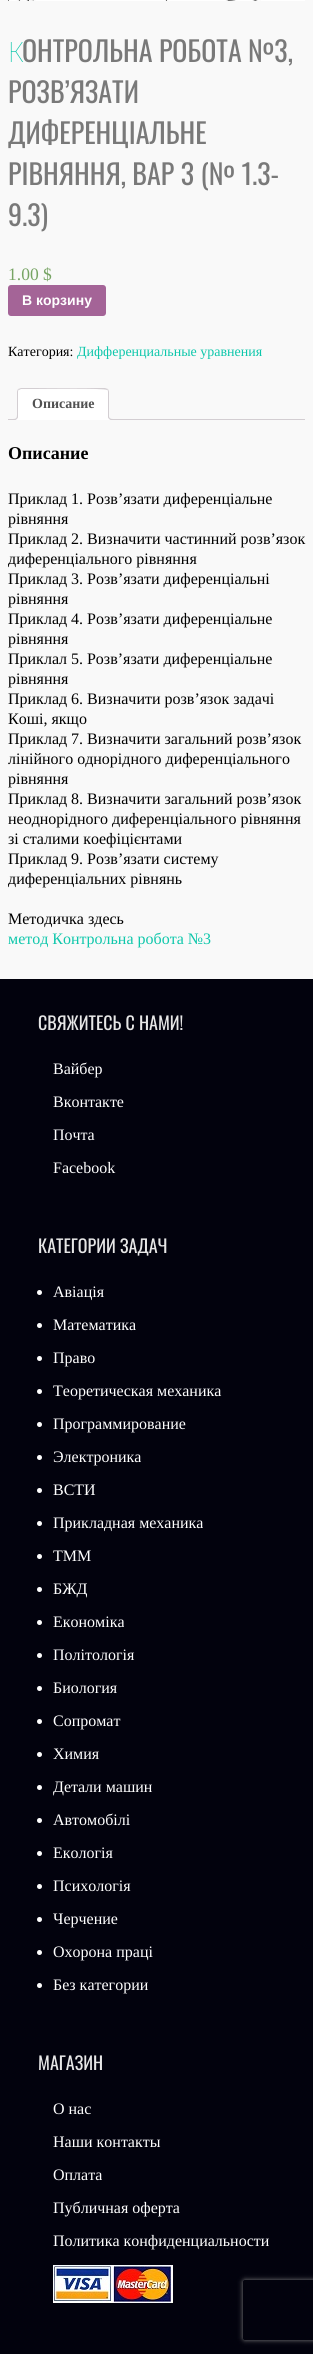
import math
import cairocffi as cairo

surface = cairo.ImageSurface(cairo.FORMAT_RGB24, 313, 2354)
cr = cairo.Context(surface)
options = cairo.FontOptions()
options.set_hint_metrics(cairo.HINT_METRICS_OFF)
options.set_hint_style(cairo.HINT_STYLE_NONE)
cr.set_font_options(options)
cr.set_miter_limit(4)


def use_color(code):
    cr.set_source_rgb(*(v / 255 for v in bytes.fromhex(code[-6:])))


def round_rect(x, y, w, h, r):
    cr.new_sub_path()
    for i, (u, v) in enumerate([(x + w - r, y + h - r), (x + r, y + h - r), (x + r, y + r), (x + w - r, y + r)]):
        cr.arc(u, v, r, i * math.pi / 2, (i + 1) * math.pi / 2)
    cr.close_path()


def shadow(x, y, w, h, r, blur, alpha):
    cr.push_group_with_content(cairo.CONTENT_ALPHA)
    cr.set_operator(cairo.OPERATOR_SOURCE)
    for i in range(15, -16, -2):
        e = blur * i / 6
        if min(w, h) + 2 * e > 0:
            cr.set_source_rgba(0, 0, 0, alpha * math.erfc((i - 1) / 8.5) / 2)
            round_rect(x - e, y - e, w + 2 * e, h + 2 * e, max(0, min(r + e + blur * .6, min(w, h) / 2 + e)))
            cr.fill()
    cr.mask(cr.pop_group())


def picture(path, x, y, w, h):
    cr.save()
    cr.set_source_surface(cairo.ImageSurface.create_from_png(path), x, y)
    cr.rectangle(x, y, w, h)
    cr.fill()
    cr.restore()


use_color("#f9f9f9")
cr.paint()
picture("img1.png", 8, 0, 297, 1)
cr.select_font_face("Noto Sans Thin")
cr.set_font_size(28)
use_color("#0ec7ab")
cr.move_to(8, 62)
cr.show_text("К")
cr.select_font_face("Oswald")
use_color("#797979")
cr.move_to(22, 62)
cr.show_text("ОНТРОЛЬНА РОБОТА №3,")
cr.move_to(8, 103)
cr.show_text("РОЗВ’ЯЗАТИ")
cr.move_to(8, 144)
cr.show_text("ДИФЕРЕНЦІАЛЬНЕ")
cr.move_to(8, 185)
cr.show_text("РІВНЯННЯ, ВАР 3 (№ 1.3-")
cr.move_to(8, 226)
cr.show_text("9.3)")
cr.select_font_face("Liberation Serif")
cr.set_font_size(17.5)
use_color("#77a464")
cr.move_to(8, 280)
cr.show_text("1.00 $")
use_color("#a46497")
round_rect(8, 285, 98, 31, 3)
cr.fill()
cr.select_font_face("Liberation Sans", cairo.FONT_SLANT_NORMAL, cairo.FONT_WEIGHT_BOLD)
cr.set_font_size(14)
use_color("#ffffff")
cr.move_to(22, 305)
cr.show_text("В корзину")
cr.select_font_face("Liberation Serif")
use_color("#000000")
cr.move_to(8, 356)
cr.show_text("Категория:")
use_color("#0ec7ab")
cr.move_to(77, 356)
cr.show_text("Дифференциальные уравнения")
use_color("#d3ced2")
cr.rectangle(8, 419, 297, 1)
cr.fill()
use_color("#ffffff")
cr.new_path()
cr.move_to(21, 388)
cr.line_to(105, 388)
cr.curve_to(107, 388, 109, 390, 109, 392)
cr.line_to(109, 420)
cr.line_to(17, 420)
cr.line_to(17, 392)
cr.curve_to(17, 390, 19, 388, 21, 388)
cr.close_path()
cr.fill()
use_color("#d3ced2")
cr.new_path()
cr.move_to(21, 388)
cr.line_to(18, 389)
cr.line_to(19, 390)
cr.line_to(21, 389)
cr.line_to(35, 389)
cr.curve_to(43, 389, 105, 388, 107, 390)
cr.line_to(108, 389)
cr.line_to(105, 388)
cr.close_path()
cr.fill()
cr.new_path()
cr.move_to(109, 420)
cr.line_to(109, 392)
cr.curve_to(109, 391, 108.5, 390, 108, 389)
cr.line_to(107, 390)
cr.curve_to(108, 390, 108, 391, 108, 392)
cr.line_to(108, 419)
cr.close_path()
cr.fill()
use_color("#ffffff")
cr.new_path()
cr.move_to(109, 420)
cr.line_to(108, 419)
cr.line_to(18, 419)
cr.line_to(17, 420)
cr.close_path()
cr.fill()
use_color("#d3ced2")
cr.new_path()
cr.move_to(17, 420)
cr.line_to(18, 419)
cr.line_to(18, 392)
cr.curve_to(18, 391, 18, 390, 19, 390)
cr.line_to(18, 389)
cr.curve_to(17.5, 390, 17, 391, 17, 392)
cr.close_path()
cr.fill()
cr.select_font_face("Liberation Serif", cairo.FONT_SLANT_NORMAL, cairo.FONT_WEIGHT_BOLD)
use_color("#515151")
cr.move_to(32, 408)
cr.show_text("Описание")
cr.save()
cr.rectangle(8, 388, 297, 32)
cr.clip()
use_color("#ffffff")
cr.new_path()
cr.move_to(15, 420)
cr.line_to(15, 422)
cr.curve_to(18.5, 422, 20, 420.5, 20, 417)
cr.line_to(18, 417)
cr.curve_to(17.5, 418.5, 16.5, 419.5, 15, 420)
cr.close_path()
cr.fill()
cr.restore()
use_color("#d3ced2")
cr.set_fill_rule(cairo.FILL_RULE_EVEN_ODD)
cr.new_path()
cr.move_to(13, 415)
cr.line_to(18, 415)
cr.curve_to(18, 418.5, 16.5, 420, 13, 420)
cr.close_path()
cr.move_to(13, 415)
cr.line_to(17, 415)
cr.curve_to(17, 418, 16, 419, 13, 419)
cr.close_path()
cr.fill()
cr.save()
cr.set_fill_rule(cairo.FILL_RULE_WINDING)
cr.rectangle(8, 388, 297, 32)
cr.clip()
use_color("#ffffff")
cr.new_path()
cr.move_to(106, 417)
cr.curve_to(106, 420.5, 107.5, 422, 111, 422)
cr.line_to(111, 420)
cr.curve_to(109.5, 419.5, 108.5, 418.5, 108, 417)
cr.close_path()
cr.fill()
cr.restore()
cr.new_path()
cr.move_to(108, 415)
cr.line_to(113, 415)
cr.line_to(113, 420)
cr.curve_to(110.5, 420, 108, 419, 108, 416)
cr.close_path()
cr.move_to(109, 415)
cr.line_to(113, 415)
cr.line_to(113, 419)
cr.curve_to(111, 419, 109, 418.5, 109, 416)
cr.close_path()
cr.fill()
cr.set_font_size(18)
use_color("#000000")
cr.move_to(8, 459)
cr.show_text("Описание")
cr.select_font_face("Liberation Serif")
cr.set_font_size(16)
cr.move_to(8, 504)
cr.show_text("Приклад 1. Розв’язати диференціальне")
cr.move_to(8, 524)
cr.show_text("рівняння")
cr.move_to(8, 544)
cr.show_text("Приклад 2. Визначити частинний розв’язок")
cr.move_to(8, 564)
cr.show_text("диференціального рівняння")
cr.move_to(8, 584)
cr.show_text("Приклад 3. Розв’язати диференціальні")
cr.move_to(8, 604)
cr.show_text("рівняння")
cr.move_to(8, 624)
cr.show_text("Приклад 4. Розв’язати диференціальне")
cr.move_to(8, 644)
cr.show_text("рівняння")
cr.move_to(8, 664)
cr.show_text("Приклал 5. Розв’язати диференціальне")
cr.move_to(8, 684)
cr.show_text("рівняння")
cr.move_to(8, 704)
cr.show_text("Приклад 6. Визначити розв’язок задачі")
cr.move_to(8, 724)
cr.show_text("Коші, якщо")
cr.move_to(8, 744)
cr.show_text("Приклад 7. Визначити загальний розв’язок")
cr.move_to(8, 764)
cr.show_text("лінійного однорідного диференціального")
cr.move_to(8, 784)
cr.show_text("рівняння")
cr.move_to(8, 804)
cr.show_text("Приклад 8. Визначити загальний розв’язок")
cr.move_to(8, 824)
cr.show_text("неоднорідного диференціального рівняння")
cr.move_to(8, 844)
cr.show_text("зі сталими коефіцієнтами")
cr.move_to(8, 864)
cr.show_text("Приклад 9. Розв’язати систему")
cr.move_to(8, 884)
cr.show_text("диференціальних рівнянь")
cr.move_to(8, 924)
cr.show_text("Методичка здесь")
use_color("#0ec7ab")
cr.move_to(8, 944)
cr.show_text("метод Контрольна робота №3")
use_color("#02020d")
cr.rectangle(0, 979, 313, 1375)
cr.fill()
cr.select_font_face("Oswald")
cr.set_font_size(18)
use_color("#e7e7e7")
cr.move_to(38, 1030)
cr.show_text("СВЯЖИТЕСЬ С НАМИ!")
cr.select_font_face("Liberation Serif")
cr.set_font_size(16)
use_color("#ffffff")
cr.move_to(53, 1074)
cr.show_text("Вайбер")
cr.move_to(53, 1107)
cr.show_text("Вконтакте")
cr.move_to(53, 1140)
cr.show_text("Почта")
cr.move_to(53, 1173)
cr.show_text("Facebook")
cr.select_font_face("Oswald")
cr.set_font_size(18)
use_color("#e7e7e7")
cr.move_to(38, 1253)
cr.show_text("КАТЕГОРИИ ЗАДАЧ")
use_color("#ffffff")
cr.new_path()
cr.arc(39.5, 1292.5, 2.5, 0, 2 * math.pi)
cr.fill()
cr.select_font_face("Liberation Serif")
cr.set_font_size(16)
cr.move_to(53, 1297)
cr.show_text("Авіація")
cr.new_path()
cr.arc(39.5, 1325.5, 2.5, 0, 2 * math.pi)
cr.fill()
cr.move_to(53, 1330)
cr.show_text("Математика")
cr.new_path()
cr.arc(39.5, 1358.5, 2.5, 0, 2 * math.pi)
cr.fill()
cr.move_to(53, 1363)
cr.show_text("Право")
cr.new_path()
cr.arc(39.5, 1391.5, 2.5, 0, 2 * math.pi)
cr.fill()
cr.move_to(53, 1396)
cr.show_text("Теоретическая механика")
cr.new_path()
cr.arc(39.5, 1424.5, 2.5, 0, 2 * math.pi)
cr.fill()
cr.move_to(53, 1429)
cr.show_text("Программирование")
cr.new_path()
cr.arc(39.5, 1457.5, 2.5, 0, 2 * math.pi)
cr.fill()
cr.move_to(53, 1462)
cr.show_text("Электроника")
cr.new_path()
cr.arc(39.5, 1490.5, 2.5, 0, 2 * math.pi)
cr.fill()
cr.move_to(53, 1495)
cr.show_text("ВСТИ")
cr.new_path()
cr.arc(39.5, 1523.5, 2.5, 0, 2 * math.pi)
cr.fill()
cr.move_to(53, 1528)
cr.show_text("Прикладная механика")
cr.new_path()
cr.arc(39.5, 1556.5, 2.5, 0, 2 * math.pi)
cr.fill()
cr.move_to(53, 1561)
cr.show_text("ТММ")
cr.new_path()
cr.arc(39.5, 1589.5, 2.5, 0, 2 * math.pi)
cr.fill()
cr.move_to(53, 1594)
cr.show_text("БЖД")
cr.new_path()
cr.arc(39.5, 1622.5, 2.5, 0, 2 * math.pi)
cr.fill()
cr.move_to(53, 1627)
cr.show_text("Економіка")
cr.new_path()
cr.arc(39.5, 1655.5, 2.5, 0, 2 * math.pi)
cr.fill()
cr.move_to(53, 1660)
cr.show_text("Політологія")
cr.new_path()
cr.arc(39.5, 1688.5, 2.5, 0, 2 * math.pi)
cr.fill()
cr.move_to(53, 1693)
cr.show_text("Биология")
cr.new_path()
cr.arc(39.5, 1721.5, 2.5, 0, 2 * math.pi)
cr.fill()
cr.move_to(53, 1726)
cr.show_text("Сопромат")
cr.new_path()
cr.arc(39.5, 1754.5, 2.5, 0, 2 * math.pi)
cr.fill()
cr.move_to(53, 1759)
cr.show_text("Химия")
cr.new_path()
cr.arc(39.5, 1787.5, 2.5, 0, 2 * math.pi)
cr.fill()
cr.move_to(53, 1792)
cr.show_text("Детали машин")
cr.new_path()
cr.arc(39.5, 1820.5, 2.5, 0, 2 * math.pi)
cr.fill()
cr.move_to(53, 1825)
cr.show_text("Автомобілі")
cr.new_path()
cr.arc(39.5, 1853.5, 2.5, 0, 2 * math.pi)
cr.fill()
cr.move_to(53, 1858)
cr.show_text("Екологія")
cr.new_path()
cr.arc(39.5, 1886.5, 2.5, 0, 2 * math.pi)
cr.fill()
cr.move_to(53, 1891)
cr.show_text("Психологія")
cr.new_path()
cr.arc(39.5, 1919.5, 2.5, 0, 2 * math.pi)
cr.fill()
cr.move_to(53, 1924)
cr.show_text("Черчение")
cr.new_path()
cr.arc(39.5, 1952.5, 2.5, 0, 2 * math.pi)
cr.fill()
cr.move_to(53, 1957)
cr.show_text("Охорона праці")
cr.new_path()
cr.arc(39.5, 1985.5, 2.5, 0, 2 * math.pi)
cr.fill()
cr.move_to(53, 1990)
cr.show_text("Без категории")
cr.select_font_face("Oswald")
cr.set_font_size(18)
use_color("#e7e7e7")
cr.move_to(38, 2070)
cr.show_text("МАГАЗИН")
cr.select_font_face("Liberation Serif")
cr.set_font_size(16)
use_color("#ffffff")
cr.move_to(53, 2114)
cr.show_text("О нас")
cr.move_to(53, 2147)
cr.show_text("Наши контакты")
cr.move_to(53, 2180)
cr.show_text("Оплата")
cr.move_to(53, 2213)
cr.show_text("Публичная оферта")
cr.move_to(53, 2246)
cr.show_text("Политика конфиденциальности")
picture("img2.png", 53, 2265, 120, 38)
cr.save()
cr.new_path()
cr.move_to(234, 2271)
cr.line_to(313, 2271)
cr.line_to(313, 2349)
cr.line_to(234, 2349)
cr.close_path()
cr.move_to(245, 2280)
cr.line_to(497, 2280)
cr.curve_to(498, 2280, 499, 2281, 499, 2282)
cr.line_to(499, 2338)
cr.curve_to(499, 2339, 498, 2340, 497, 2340)
cr.line_to(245, 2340)
cr.curve_to(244, 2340, 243, 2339, 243, 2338)
cr.line_to(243, 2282)
cr.curve_to(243, 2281, 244, 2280, 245, 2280)
cr.close_path()
cr.clip()
use_color("#808080")
shadow(243, 2280, 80, 60, 2, 2.5, 1)
cr.restore()
surface.write_to_png("result.png")
